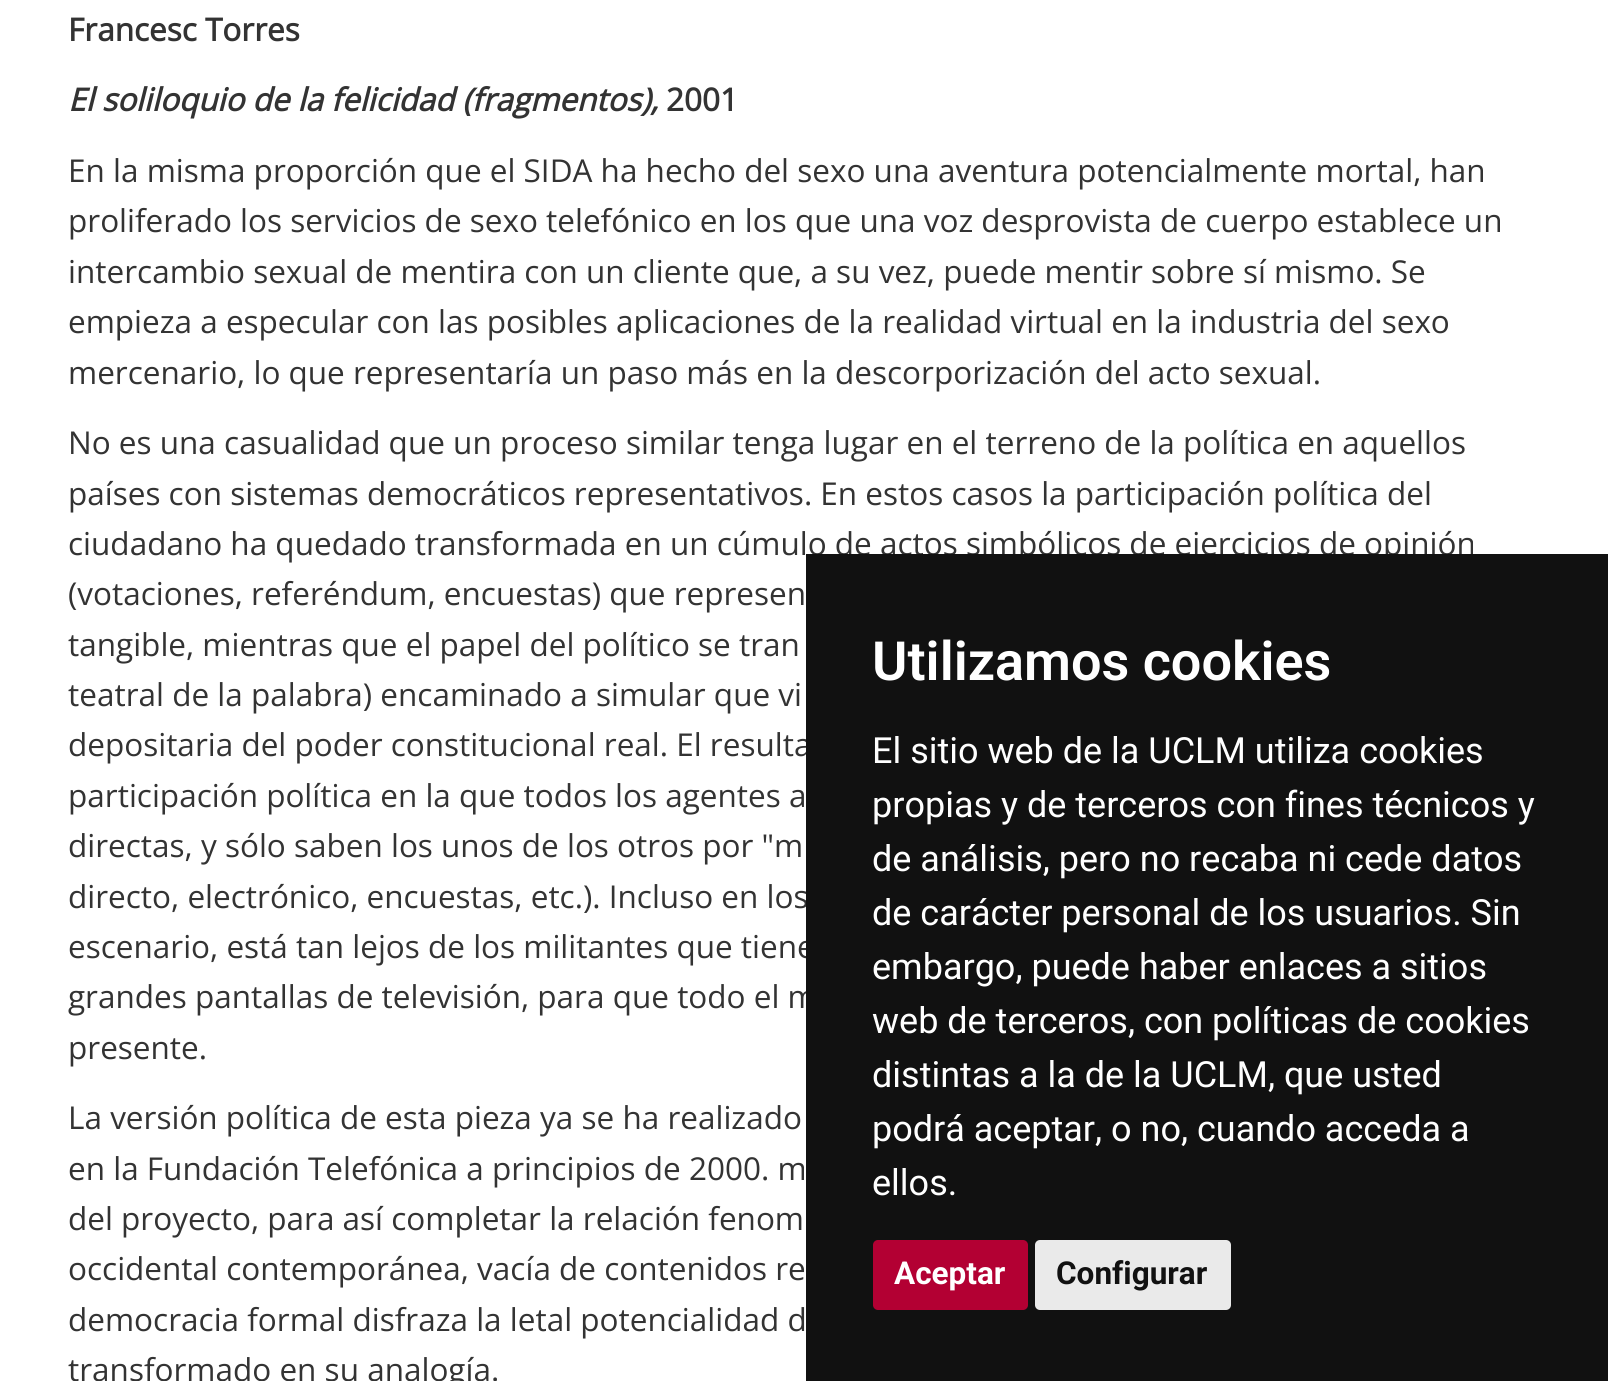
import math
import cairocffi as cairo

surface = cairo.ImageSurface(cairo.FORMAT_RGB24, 1608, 1381)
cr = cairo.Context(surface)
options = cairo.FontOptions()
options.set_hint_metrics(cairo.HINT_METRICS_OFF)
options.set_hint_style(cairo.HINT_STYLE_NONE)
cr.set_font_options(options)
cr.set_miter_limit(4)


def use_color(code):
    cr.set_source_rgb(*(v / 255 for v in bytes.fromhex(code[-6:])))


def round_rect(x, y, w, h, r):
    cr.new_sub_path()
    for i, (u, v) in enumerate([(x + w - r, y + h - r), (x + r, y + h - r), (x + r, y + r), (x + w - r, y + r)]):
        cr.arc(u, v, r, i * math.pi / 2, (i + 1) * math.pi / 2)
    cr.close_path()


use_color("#ffffff")
cr.paint()
cr.select_font_face("Open Sans", cairo.FONT_SLANT_NORMAL, cairo.FONT_WEIGHT_BOLD)
cr.set_font_size(31.5)
use_color("#333333")
cr.move_to(68, 41)
cr.show_text("Francesc Torres")
cr.select_font_face("Open Sans", cairo.FONT_SLANT_ITALIC, cairo.FONT_WEIGHT_BOLD)
cr.move_to(68, 111)
cr.show_text("El soliloquio de la felicidad (fragmentos),")
cr.select_font_face("Open Sans", cairo.FONT_SLANT_NORMAL, cairo.FONT_WEIGHT_BOLD)
cr.move_to(666, 111)
cr.show_text("2001")
cr.select_font_face("Open Sans")
cr.move_to(68, 182)
cr.show_text("En la misma proporción que el SIDA ha hecho del sexo una aventura potencialmente mortal, han")
cr.move_to(68, 232)
cr.show_text("proliferado los servicios de sexo telefónico en los que una voz desprovista de cuerpo establece un")
cr.move_to(68, 283)
cr.show_text("intercambio sexual de mentira con un cliente que, a su vez, puede mentir sobre sí mismo. Se")
cr.move_to(68, 333)
cr.show_text("empieza a especular con las posibles aplicaciones de la realidad virtual en la industria del sexo")
cr.move_to(68, 384)
cr.show_text("mercenario, lo que representaría un paso más en la descorporización del acto sexual.")
cr.move_to(68, 454)
cr.show_text("No es una casualidad que un proceso similar tenga lugar en el terreno de la política en aquellos")
cr.move_to(68, 505)
cr.show_text("países con sistemas democráticos representativos. En estos casos la participación política del")
cr.move_to(68, 555)
cr.show_text("ciudadano ha quedado transformada en un cúmulo de actos simbólicos de ejercicios de opinión")
cr.move_to(68, 605)
cr.show_text("(votaciones, referéndum, encuestas) que represen")
cr.move_to(68, 656)
cr.show_text("tangible, mientras que el papel del político se tran")
cr.move_to(68, 706)
cr.show_text("teatral de la palabra) encaminado a simular que vi")
cr.move_to(68, 756)
cr.show_text("depositaria del poder constitucional real. El resulta")
cr.move_to(68, 807)
cr.show_text("participación política en la que todos los agentes a")
cr.move_to(68, 857)
cr.show_text("directas, y sólo saben los unos de los otros por \"m")
cr.move_to(68, 908)
cr.show_text("directo, electrónico, encuestas, etc.). Incluso en los")
cr.move_to(68, 958)
cr.show_text("escenario, está tan lejos de los militantes que tiene")
cr.move_to(68, 1008)
cr.show_text("grandes pantallas de televisión, para que todo el m")
cr.move_to(68, 1059)
cr.show_text("presente.")
cr.move_to(68, 1129)
cr.show_text("La versión política de esta pieza ya se ha realizado")
cr.move_to(68, 1180)
cr.show_text("en la Fundación Telefónica a principios de 2000. m")
cr.move_to(68, 1230)
cr.show_text("del proyecto, para así completar la relación fenom")
cr.move_to(68, 1280)
cr.show_text("occidental contemporánea, vacía de contenidos re")
cr.move_to(68, 1331)
cr.show_text("democracia formal disfraza la letal potencialidad d")
cr.move_to(68, 1381)
cr.show_text("transformado en su analogía.")
use_color("#111111")
cr.rectangle(806, 554, 802, 827)
cr.fill()
cr.select_font_face("Roboto SemiBold")
cr.set_font_size(54)
use_color("#ffffff")
cr.move_to(872, 680)
cr.show_text("Utilizamos cookies")
cr.select_font_face("Roboto")
cr.set_font_size(36)
cr.move_to(872, 763)
cr.show_text("El sitio web de la UCLM utiliza cookies")
cr.move_to(872, 817)
cr.show_text("propias y de terceros con fines técnicos y")
cr.move_to(872, 871)
cr.show_text("de análisis, pero no recaba ni cede datos")
cr.move_to(872, 925)
cr.show_text("de carácter personal de los usuarios. Sin")
cr.move_to(872, 979)
cr.show_text("embargo, puede haber enlaces a sitios")
cr.move_to(872, 1033)
cr.show_text("web de terceros, con políticas de cookies")
cr.move_to(872, 1087)
cr.show_text("distintas a la de la UCLM, que usted")
cr.move_to(872, 1141)
cr.show_text("podrá aceptar, o no, cuando acceda a")
cr.move_to(872, 1195)
cr.show_text("ellos.")
use_color("#b30033")
round_rect(873, 1240, 155, 70, 5)
cr.fill()
cr.select_font_face("Roboto", cairo.FONT_SLANT_NORMAL, cairo.FONT_WEIGHT_BOLD)
cr.set_font_size(31.5)
use_color("#ffffff")
cr.move_to(894, 1284)
cr.show_text("Aceptar")
use_color("#eaeaea")
round_rect(1035, 1240, 196, 70, 5)
cr.fill()
use_color("#111111")
cr.move_to(1056, 1284)
cr.show_text("Configurar")
surface.write_to_png("result.png")
